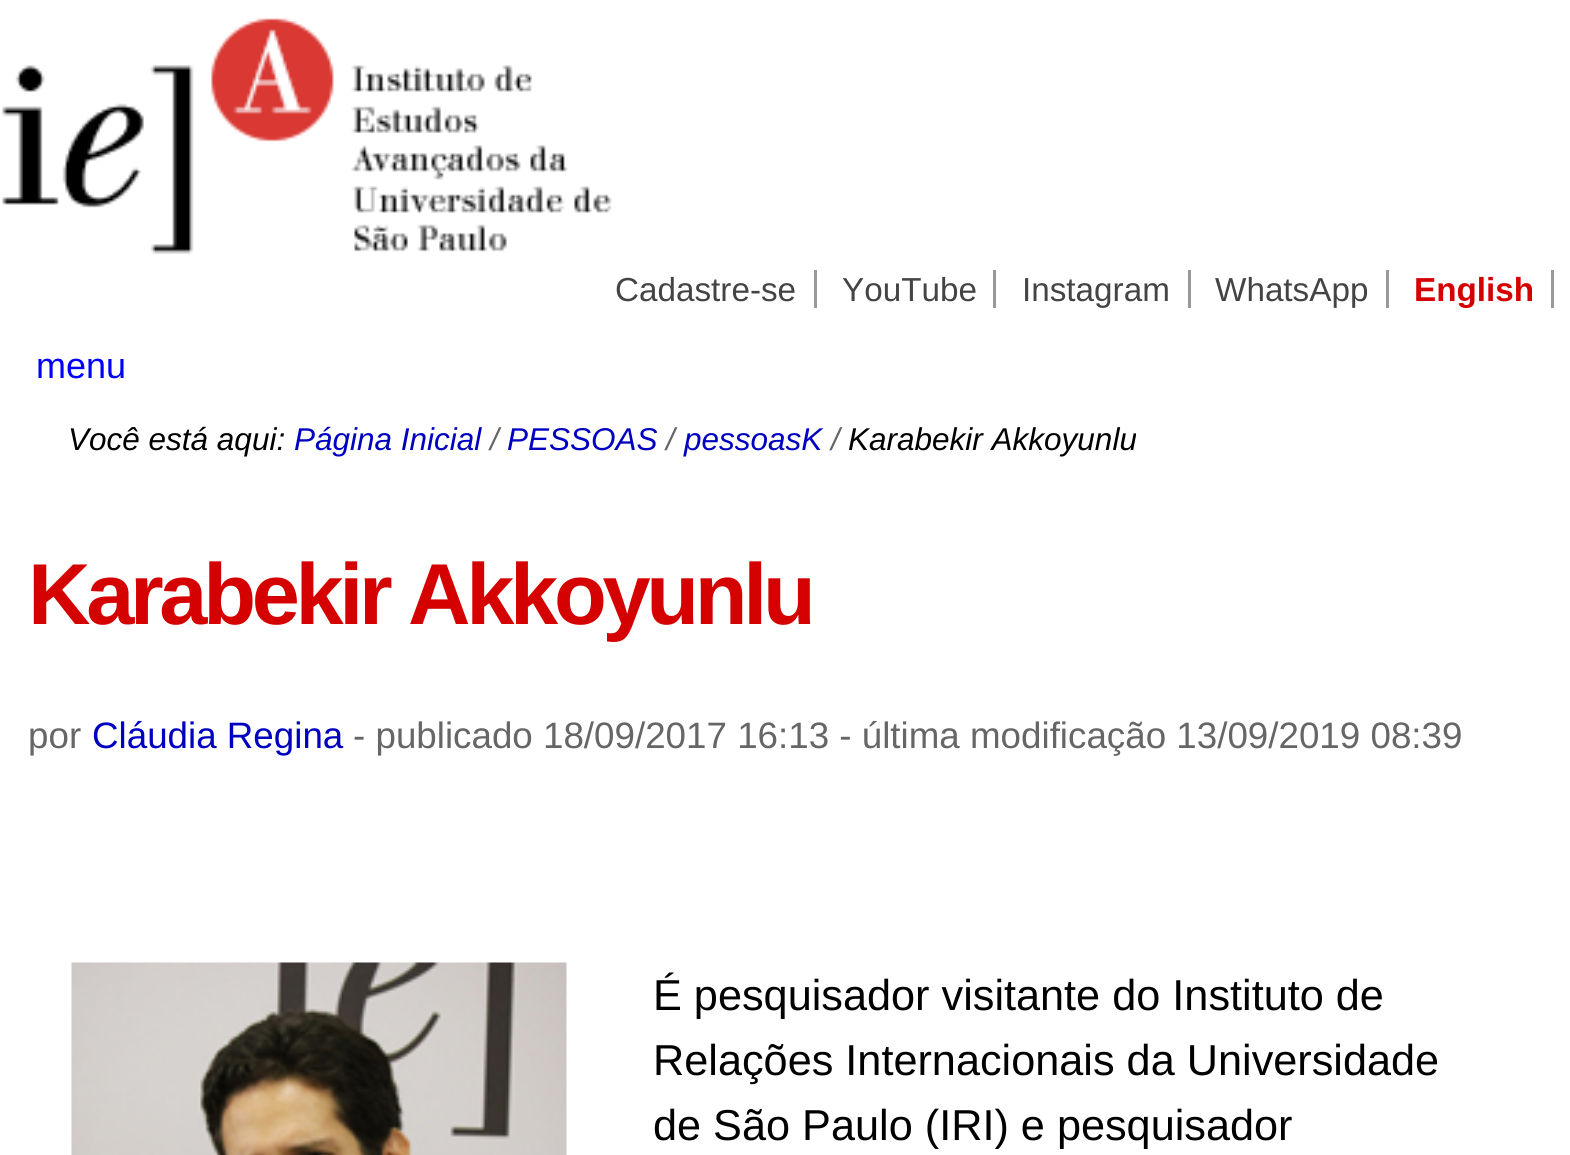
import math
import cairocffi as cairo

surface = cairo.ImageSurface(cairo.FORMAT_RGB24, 1570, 1155)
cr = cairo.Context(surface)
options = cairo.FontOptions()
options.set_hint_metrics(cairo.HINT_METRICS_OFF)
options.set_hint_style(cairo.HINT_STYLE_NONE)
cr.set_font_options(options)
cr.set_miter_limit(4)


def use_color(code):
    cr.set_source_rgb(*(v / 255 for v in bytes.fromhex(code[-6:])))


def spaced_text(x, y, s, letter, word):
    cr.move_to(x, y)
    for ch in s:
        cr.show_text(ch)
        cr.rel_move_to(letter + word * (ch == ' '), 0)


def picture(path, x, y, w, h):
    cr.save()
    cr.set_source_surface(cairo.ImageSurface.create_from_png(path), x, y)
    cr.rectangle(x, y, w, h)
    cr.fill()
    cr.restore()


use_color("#ffffff")
cr.paint()
picture("img1.png", 2, 18, 610, 236)
cr.select_font_face("Liberation Sans")
cr.set_font_size(33.25)
use_color("#444444")
cr.move_to(615, 301)
cr.show_text("Cadastre-se")
use_color("#999999")
cr.rectangle(814, 270, 3, 38)
cr.fill()
use_color("#444444")
cr.move_to(842, 301)
cr.show_text("YouTube")
use_color("#999999")
cr.rectangle(993, 270, 3, 38)
cr.fill()
use_color("#444444")
cr.move_to(1022, 301)
cr.show_text("Instagram")
use_color("#999999")
cr.rectangle(1188, 270, 3, 38)
cr.fill()
use_color("#444444")
cr.move_to(1215, 301)
cr.show_text("WhatsApp")
use_color("#999999")
cr.rectangle(1386, 270, 3, 38)
cr.fill()
cr.select_font_face("Liberation Sans", cairo.FONT_SLANT_NORMAL, cairo.FONT_WEIGHT_BOLD)
use_color("#d50000")
cr.move_to(1414, 301)
cr.show_text("English")
use_color("#999999")
cr.rectangle(1551, 270, 3, 38)
cr.fill()
cr.select_font_face("Liberation Sans")
cr.set_font_size(36)
use_color("#0000ff")
cr.move_to(36, 378)
cr.show_text("menu")
cr.select_font_face("Liberation Sans", cairo.FONT_SLANT_ITALIC)
cr.set_font_size(31.5)
use_color("#000000")
cr.move_to(68, 450)
cr.show_text("Você está aqui:")
use_color("#0000c0")
cr.move_to(294, 450)
cr.show_text("Página Inicial")
use_color("#666666")
cr.move_to(490, 450)
cr.show_text("/")
use_color("#0000c0")
cr.move_to(507, 450)
cr.show_text("PESSOAS")
use_color("#666666")
cr.move_to(666, 450)
cr.show_text("/")
use_color("#0000c0")
cr.move_to(684, 450)
cr.show_text("pessoasK")
use_color("#666666")
cr.move_to(831, 450)
cr.show_text("/")
use_color("#000000")
cr.move_to(848, 450)
cr.show_text("Karabekir Akkoyunlu")
cr.select_font_face("Liberation Sans", cairo.FONT_SLANT_NORMAL, cairo.FONT_WEIGHT_BOLD)
cr.set_font_size(86.5)
use_color("#d50000")
spaced_text(28, 624, "Karabekir Akkoyunlu", -4.3, 0)
cr.select_font_face("Liberation Sans")
cr.set_font_size(36.75)
use_color("#666666")
cr.move_to(28, 748)
cr.show_text("por")
use_color("#0000c0")
cr.move_to(92, 748)
cr.show_text("Cláudia Regina")
use_color("#666666")
cr.move_to(353, 748)
cr.show_text("- publicado 18/09/2017 16:13 - última modificação 13/09/2019 08:39")
picture("img2.png", 71, 962, 496, 193)
cr.set_font_size(43.25)
use_color("#000000")
cr.move_to(653, 1010)
cr.show_text("É pesquisador visitante do Instituto de")
cr.move_to(653, 1075)
cr.show_text("Relações Internacionais da Universidade")
cr.move_to(653, 1140)
cr.show_text("de São Paulo (IRI) e pesquisador")
surface.write_to_png("result.png")
